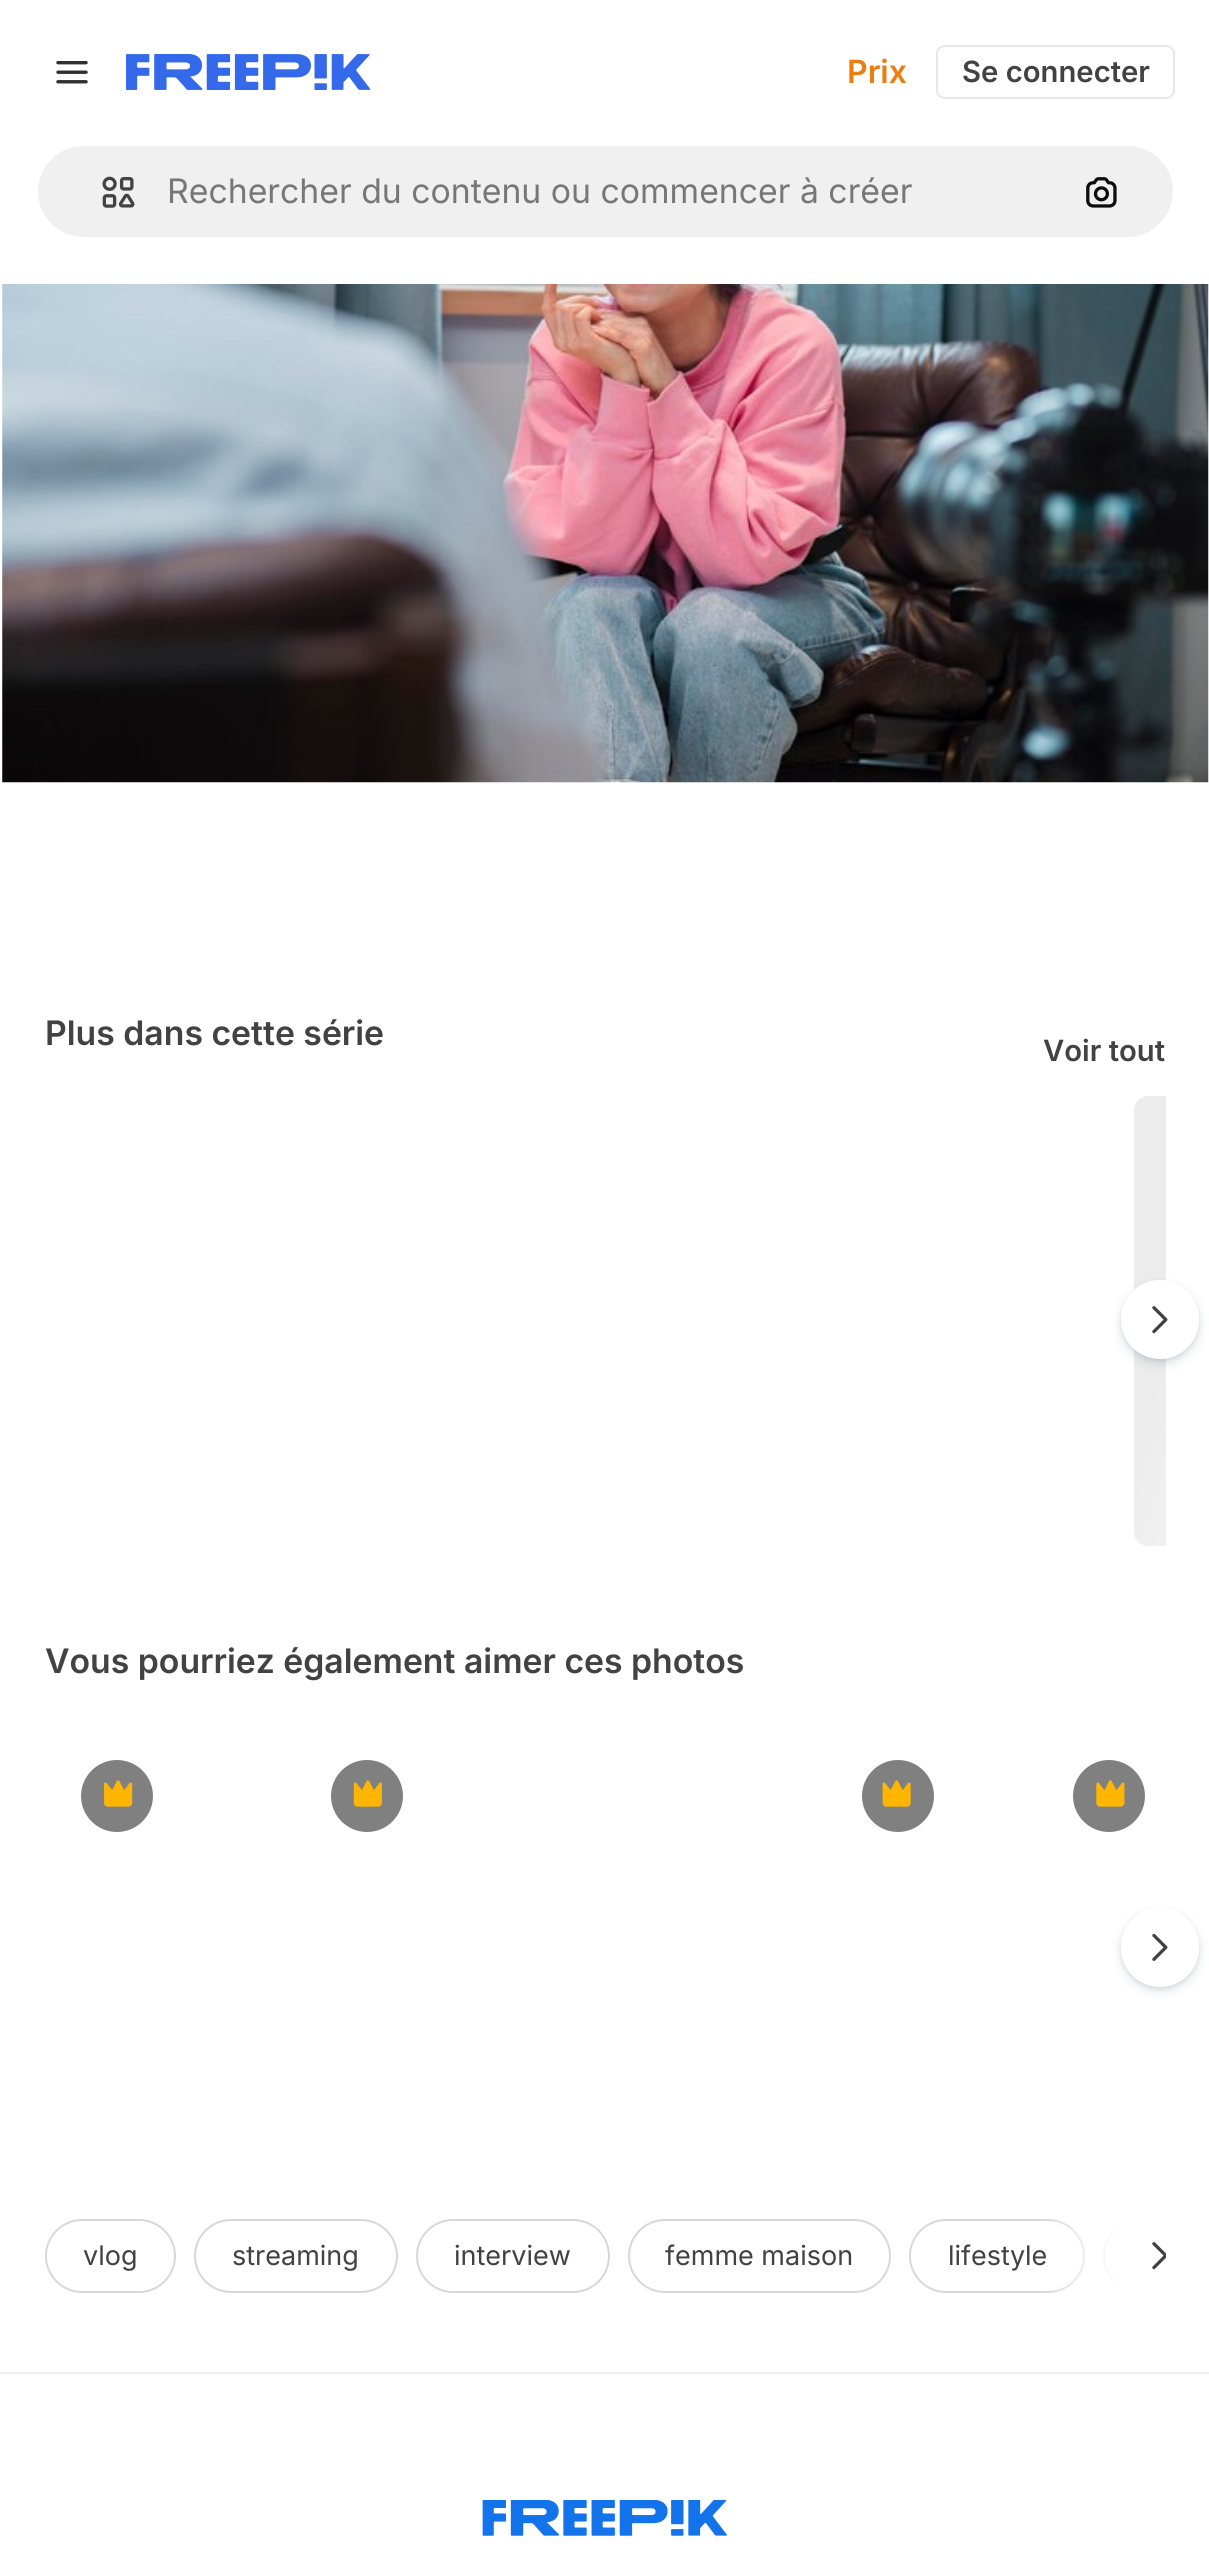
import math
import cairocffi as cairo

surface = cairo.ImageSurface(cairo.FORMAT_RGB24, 1209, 2567)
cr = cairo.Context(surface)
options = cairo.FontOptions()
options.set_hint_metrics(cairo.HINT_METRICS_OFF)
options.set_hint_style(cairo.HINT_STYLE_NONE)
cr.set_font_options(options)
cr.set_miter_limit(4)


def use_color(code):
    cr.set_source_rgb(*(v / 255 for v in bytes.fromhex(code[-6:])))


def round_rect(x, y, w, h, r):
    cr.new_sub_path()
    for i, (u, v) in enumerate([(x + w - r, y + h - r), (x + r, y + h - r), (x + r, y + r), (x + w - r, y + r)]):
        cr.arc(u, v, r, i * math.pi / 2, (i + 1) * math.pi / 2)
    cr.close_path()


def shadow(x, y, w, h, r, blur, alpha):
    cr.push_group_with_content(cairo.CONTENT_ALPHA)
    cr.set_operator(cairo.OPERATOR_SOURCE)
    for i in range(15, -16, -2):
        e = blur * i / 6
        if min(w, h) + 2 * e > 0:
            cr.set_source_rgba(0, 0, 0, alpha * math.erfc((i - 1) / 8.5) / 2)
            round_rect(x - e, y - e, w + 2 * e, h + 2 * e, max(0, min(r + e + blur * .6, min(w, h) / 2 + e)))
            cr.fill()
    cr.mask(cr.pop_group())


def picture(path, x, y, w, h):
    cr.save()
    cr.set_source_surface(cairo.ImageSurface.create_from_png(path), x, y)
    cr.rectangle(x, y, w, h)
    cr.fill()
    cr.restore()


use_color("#ffffff")
cr.paint()
picture("img1.png", 56, 61, 32, 23)
picture("img2.png", 126, 54, 245, 36)
cr.select_font_face("Inter SemiBold")
cr.set_font_size(32)
use_color("#ea7e11")
cr.move_to(847, 83)
cr.show_text("Prix")
round_rect(937, 46, 237, 52, 8)
use_color("#e7e7e7")
cr.stroke()
cr.set_font_size(29.25)
use_color("#424242")
cr.move_to(962, 82)
cr.show_text("Se connecter")
use_color("#f0f0f0")
round_rect(37, 145, 1137, 93, 46.5)
cr.fill_preserve()
use_color("#ffffff")
cr.stroke()
picture("img3.png", 102, 176, 33, 32)
cr.select_font_face("Inter")
cr.set_font_size(33.75)
use_color("#777777")
cr.move_to(167, 203)
cr.show_text("Rechercher du contenu ou commencer à créer")
picture("img4.png", 1086, 177, 31, 31)
picture("img5.png", 2, 284, 1207, 499)
cr.select_font_face("Inter SemiBold")
use_color("#424242")
cr.move_to(45, 1045)
cr.show_text("Plus dans cette série")
cr.set_font_size(29.25)
cr.move_to(1043, 1061)
cr.show_text("Voir tout")
gradient = cairo.LinearGradient(1141, 1077, 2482, 1565)
gradient.add_color_stop_rgba(0.08, 0.925, 0.925, 0.925, 1)
gradient.add_color_stop_rgba(0.18, 0.961, 0.961, 0.961, 1)
gradient.add_color_stop_rgba(0.33, 0.925, 0.925, 0.925, 1)
cr.set_source(gradient)
cr.new_path()
cr.move_to(1148, 1096)
cr.line_to(1166, 1096)
cr.line_to(1166, 1546)
cr.line_to(1148, 1546)
cr.curve_to(1140.5, 1546, 1134, 1539.5, 1134, 1532)
cr.line_to(1134, 1110)
cr.curve_to(1134, 1102.5, 1140.5, 1096, 1148, 1096)
cr.close_path()
cr.fill()
use_color("#374957")
shadow(1121, 1285, 78, 79, 39, 5.5, 0.15)
shadow(1121, 1283, 78, 78, 39, 2, 0.1)
use_color("#ffffff")
round_rect(1121, 1280, 78, 79, 39)
cr.fill()
picture("img6.png", 1152, 1306, 16, 28)
cr.set_font_size(33.75)
use_color("#424242")
cr.move_to(45, 1673)
cr.show_text("Vous pourriez également aimer ces photos")
use_color("#808080")
cr.new_path()
cr.arc(117, 1796, 36, 0, 2 * math.pi)
cr.fill()
picture("img7.png", 104, 1780, 29, 27)
cr.arc(367, 1796, 36, 0, 2 * math.pi)
cr.fill()
picture("img8.png", 353, 1780, 29, 27)
cr.arc(898, 1796, 36, 0, 2 * math.pi)
cr.fill()
picture("img9.png", 882, 1780, 29, 27)
cr.arc(1109, 1796, 36, 0, 2 * math.pi)
cr.fill()
picture("img10.png", 1096, 1780, 29, 27)
use_color("#374957")
shadow(1121, 1913, 78, 78, 39, 5.5, 0.15)
shadow(1121, 1910, 78, 79, 39, 2, 0.1)
use_color("#ffffff")
round_rect(1121, 1908, 78, 79, 39)
cr.fill()
picture("img11.png", 1152, 1933, 16, 28)
round_rect(46, 2220, 129, 72, 36)
use_color("#d8d8d8")
cr.stroke()
cr.select_font_face("Inter")
cr.set_font_size(27)
use_color("#424242")
cr.move_to(83, 2265)
cr.show_text("vlog")
round_rect(195, 2220, 202, 72, 36)
use_color("#d8d8d8")
cr.stroke()
use_color("#424242")
cr.move_to(232, 2265)
cr.show_text("streaming")
round_rect(417, 2220, 192, 72, 36)
use_color("#d8d8d8")
cr.stroke()
use_color("#424242")
cr.move_to(454, 2265)
cr.show_text("interview")
round_rect(629, 2220, 261, 72, 36)
use_color("#d8d8d8")
cr.stroke()
use_color("#424242")
cr.move_to(665, 2265)
cr.show_text("femme maison")
round_rect(910, 2220, 174, 72, 36)
use_color("#d8d8d8")
cr.stroke()
use_color("#424242")
cr.move_to(948, 2265)
cr.show_text("lifestyle")
cr.save()
cr.rectangle(45, 2219, 1121, 74)
cr.clip()
round_rect(1104, 2220, 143, 72, 36)
use_color("#d8d8d8")
cr.stroke()
cr.restore()
use_color("#ffffff")
cr.rectangle(1121, 2219, 45, 74)
cr.fill()
gradient = cairo.LinearGradient(1121, 2256, 1042, 2256)
gradient.add_color_stop_rgba(0, 1, 1, 1, 1)
gradient.add_color_stop_rgba(1, 1, 1, 1, 0)
cr.set_source(gradient)
cr.rectangle(1044, 2219, 77, 74)
cr.fill()
picture("img12.png", 1152, 2242, 14, 28)
use_color("#f0f0f0")
cr.rectangle(0, 2372, 1209, 2)
cr.fill()
picture("img13.png", 482, 2500, 245, 36)
surface.write_to_png("result.png")
